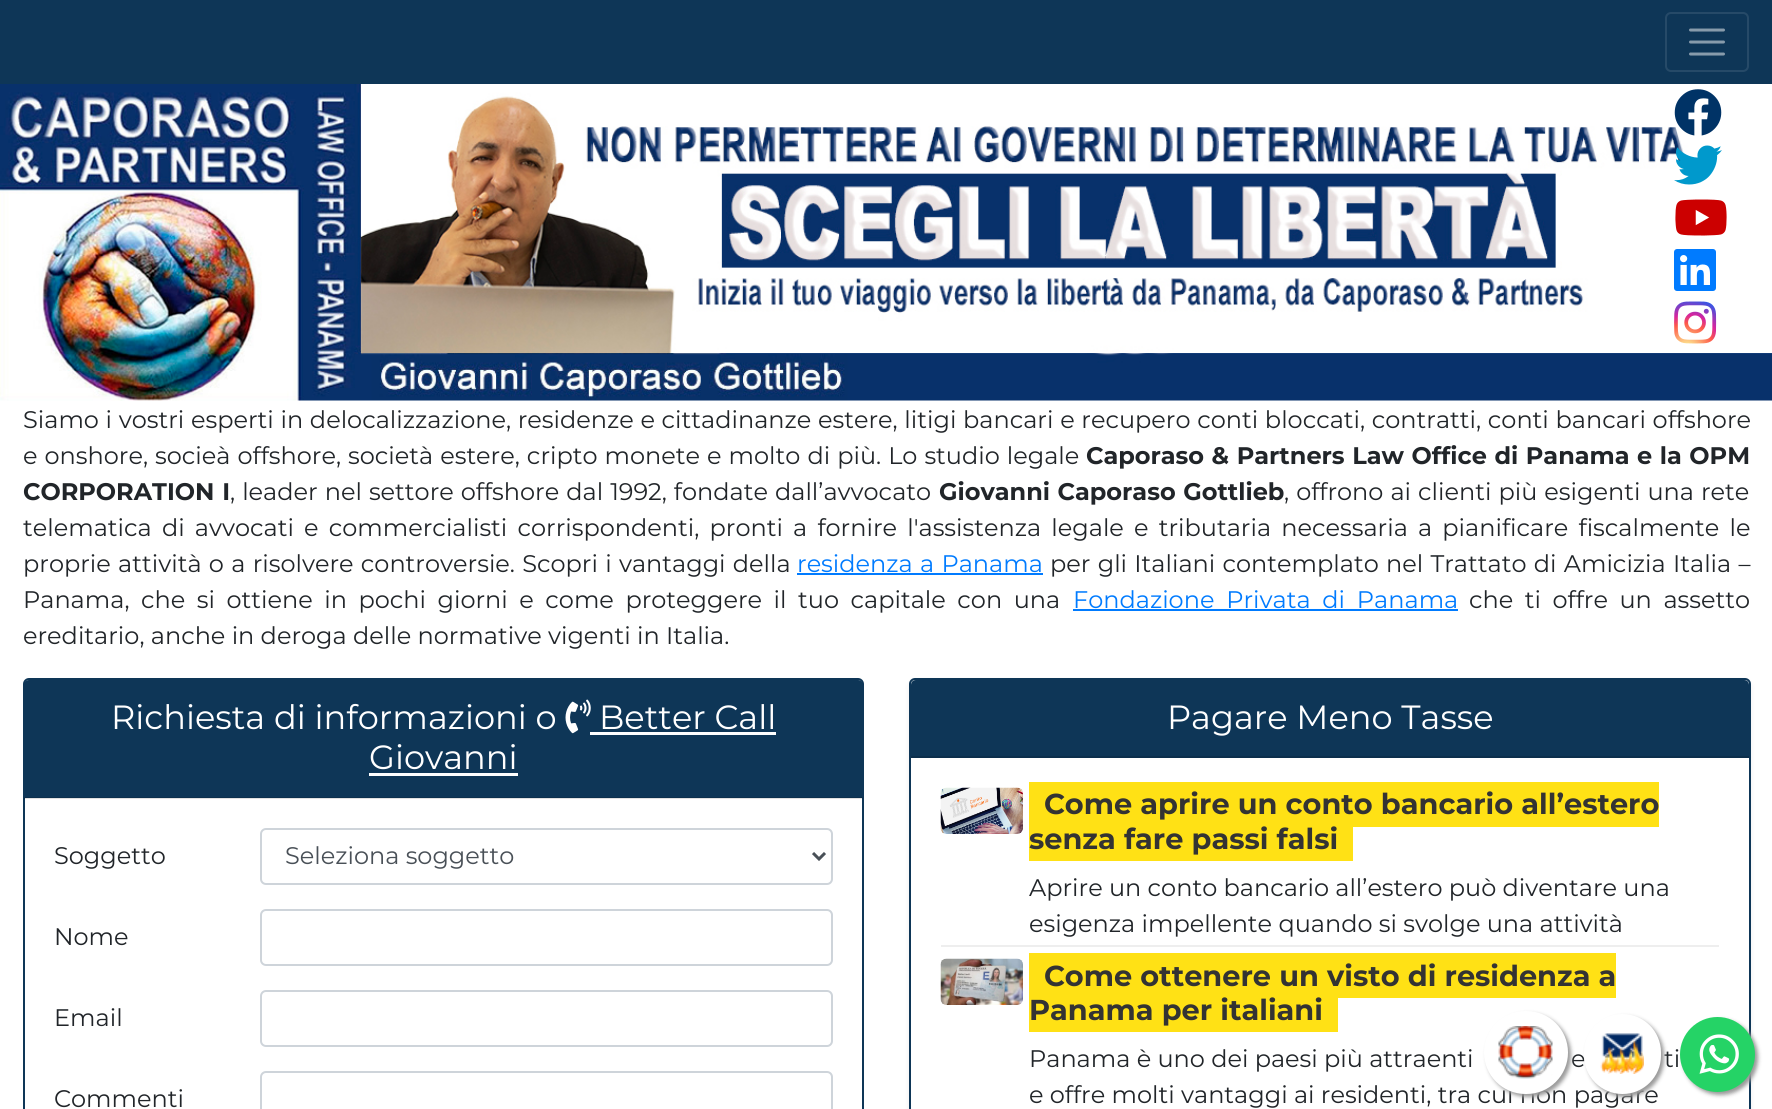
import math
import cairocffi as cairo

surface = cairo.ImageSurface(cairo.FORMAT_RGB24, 1772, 1109)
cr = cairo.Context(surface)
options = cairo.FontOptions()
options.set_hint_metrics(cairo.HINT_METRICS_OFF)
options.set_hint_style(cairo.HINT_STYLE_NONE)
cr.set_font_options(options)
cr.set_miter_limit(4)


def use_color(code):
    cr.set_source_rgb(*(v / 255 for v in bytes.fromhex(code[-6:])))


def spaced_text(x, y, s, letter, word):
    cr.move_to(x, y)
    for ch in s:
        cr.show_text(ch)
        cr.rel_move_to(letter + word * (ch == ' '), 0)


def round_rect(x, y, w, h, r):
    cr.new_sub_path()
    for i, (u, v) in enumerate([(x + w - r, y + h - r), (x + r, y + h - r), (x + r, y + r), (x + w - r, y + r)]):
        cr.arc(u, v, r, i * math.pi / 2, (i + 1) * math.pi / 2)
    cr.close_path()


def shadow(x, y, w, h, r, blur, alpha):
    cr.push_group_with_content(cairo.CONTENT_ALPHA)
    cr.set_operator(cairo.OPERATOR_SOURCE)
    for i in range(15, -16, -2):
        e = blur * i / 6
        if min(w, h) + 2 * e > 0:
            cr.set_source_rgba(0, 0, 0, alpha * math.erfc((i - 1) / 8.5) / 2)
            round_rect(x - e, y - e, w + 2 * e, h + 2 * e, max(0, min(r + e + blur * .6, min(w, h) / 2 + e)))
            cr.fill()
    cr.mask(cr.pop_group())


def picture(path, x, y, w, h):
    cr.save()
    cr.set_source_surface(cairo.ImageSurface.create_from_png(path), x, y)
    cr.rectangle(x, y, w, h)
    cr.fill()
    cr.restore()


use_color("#ffffff")
cr.paint()
use_color("#0e3657")
cr.rectangle(0, 0, 1772, 84)
cr.fill()
round_rect(1666, 13, 82, 58, 5)
use_color("#264a68")
cr.stroke()
cr.new_path()
cr.move_to(1690.5, 30)
cr.line_to(1723.5, 30)
cr.move_to(1690.5, 42)
cr.line_to(1723.5, 42)
cr.move_to(1690.5, 54)
cr.line_to(1723.5, 54)
use_color("#879bab")
cr.set_line_width(3)
cr.set_line_cap(cairo.LINE_CAP_ROUND)
cr.stroke()
picture("img1.png", 0, 84, 1772, 317)
picture("img2.png", 1674, 89, 48, 47)
picture("img3.png", 1674, 145, 48, 40)
picture("img4.png", 1675, 199, 52, 37)
picture("img5.png", 1674, 249, 42, 42)
picture("img6.png", 1674, 301, 43, 43)
cr.select_font_face("Montserrat")
cr.set_font_size(24)
use_color("#212529")
spaced_text(23, 428, "Siamo i vostri esperti in delocalizzazione, residenze e cittadinanze estere, litigi bancari e recupero conti bloccati, contratti, conti bancari offshore", 0, 0.4)
spaced_text(23, 464, "e onshore, socieà offshore, società estere, cripto monete e molto di più. Lo studio legale", 0, 0.75)
cr.select_font_face("Montserrat", cairo.FONT_SLANT_NORMAL, cairo.FONT_WEIGHT_BOLD)
spaced_text(1086, 464, "Caporaso & Partners Law Office di Panama e la OPM", 0, 0.75)
spaced_text(23, 500, "CORPORATION I", 0, 1)
cr.select_font_face("Montserrat")
spaced_text(230, 500, ", leader nel settore offshore dal 1992, fondate dall’avvocato", 0, 0.75)
cr.select_font_face("Montserrat", cairo.FONT_SLANT_NORMAL, cairo.FONT_WEIGHT_BOLD)
spaced_text(939, 500, "Giovanni Caporaso Gottlieb", 0, 0.75)
cr.select_font_face("Montserrat")
spaced_text(1284, 500, ", offrono ai clienti più esigenti una rete", 0, 0.75)
spaced_text(23, 536, "telematica di avvocati e commercialisti corrispondenti, pronti a fornire l'assistenza legale e tributaria necessaria a pianificare fiscalmente le", 0, 3.9)
spaced_text(23, 572, "proprie attività o a risolvere controversie. Scopri i vantaggi della", 0, 1)
use_color("#007bff")
spaced_text(797, 572, "residenza a Panama", 0, 1)
cr.rectangle(797, 573, 246, 2)
cr.fill()
use_color("#212529")
spaced_text(1050, 572, "per gli Italiani contemplato nel Trattato di Amicizia Italia –", 0, 1)
spaced_text(23, 608, "Panama, che si ottiene in pochi giorni e come proteggere il tuo capitale con una", 0, 5.25)
use_color("#007bff")
spaced_text(1073, 608, "Fondazione Privata di Panama", 0, 5.5)
cr.rectangle(1073, 609, 385, 2)
cr.fill()
use_color("#212529")
spaced_text(1469, 608, "che ti offre un assetto", 0, 5.25)
cr.move_to(23, 644)
cr.show_text("ereditario, anche in deroga delle normative vigenti in Italia.")
round_rect(24, 679, 839, 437, 5)
use_color("#0e3657")
cr.set_line_width(2)
cr.set_line_cap(cairo.LINE_CAP_BUTT)
cr.stroke()
cr.new_path()
cr.move_to(29, 680)
cr.line_to(858, 680)
cr.curve_to(861, 680, 863, 682, 863, 685)
cr.line_to(863, 798)
cr.line_to(24, 798)
cr.line_to(24, 685)
cr.curve_to(24, 682, 26, 680, 29, 680)
cr.close_path()
cr.fill()
cr.set_source_rgba(0, 0, 0, 0.12)
cr.rectangle(24, 797, 839, 2)
cr.fill()
cr.set_font_size(33.6)
use_color("#ffffff")
cr.move_to(111, 729)
cr.show_text("Richiesta di informazioni o")
picture("img7.png", 565, 699, 26, 35)
cr.move_to(599, 729)
cr.show_text("Better Call")
cr.rectangle(590, 732, 186, 3)
cr.fill()
cr.move_to(369, 769)
cr.show_text("Giovanni")
cr.rectangle(369, 773, 149, 3)
cr.fill()
cr.set_font_size(24)
use_color("#212529")
cr.move_to(54, 864)
cr.show_text("Soggetto")
round_rect(261, 829, 571, 55, 5)
use_color("#ced4da")
cr.stroke()
cr.new_path()
cr.move_to(813, 853)
cr.line_to(819, 859)
cr.line_to(825, 853)
use_color("#495057")
cr.set_line_width(3)
cr.stroke()
cr.move_to(285, 864)
cr.show_text("Seleziona soggetto")
use_color("#212529")
cr.move_to(54, 945)
cr.show_text("Nome")
round_rect(261, 910, 571, 55, 5)
use_color("#ced4da")
cr.set_line_width(2)
cr.stroke()
use_color("#212529")
cr.move_to(54, 1026)
cr.show_text("Email")
round_rect(261, 991, 571, 55, 5)
use_color("#ced4da")
cr.stroke()
use_color("#212529")
cr.move_to(54, 1107)
cr.show_text("Commenti")
round_rect(261, 1072, 571, 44, 5)
use_color("#ced4da")
cr.stroke()
use_color("#000000")
shadow(909, 681, 842, 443, 6, 3, 0.07)
use_color("#ffffff")
round_rect(910, 679, 840, 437, 5)
cr.fill_preserve()
use_color("#0e3657")
cr.stroke()
cr.new_path()
cr.move_to(916, 680)
cr.line_to(1744, 680)
cr.curve_to(1747, 680, 1749, 682, 1749, 685)
cr.line_to(1749, 758)
cr.line_to(911, 758)
cr.line_to(911, 685)
cr.curve_to(911, 682, 913, 680, 916, 680)
cr.close_path()
cr.fill()
use_color("#0c2f4c")
cr.rectangle(911, 756, 838, 2)
cr.fill()
cr.set_font_size(33.6)
use_color("#ffffff")
cr.move_to(1167, 729)
cr.show_text("Pagare Meno Tasse")
use_color("#eeeeee")
cr.rectangle(941, 945, 778, 2)
cr.fill()
picture("img8.png", 940, 787, 83, 47)
use_color("#ffe115")
cr.rectangle(1029, 782, 630, 45)
cr.fill()
cr.select_font_face("Montserrat", cairo.FONT_SLANT_NORMAL, cairo.FONT_WEIGHT_BOLD)
cr.set_font_size(28.8)
use_color("#333333")
cr.move_to(1044, 814)
cr.show_text("Come aprire un conto bancario all’estero")
use_color("#ffe115")
cr.rectangle(1029, 827, 324, 34)
cr.fill()
use_color("#333333")
cr.move_to(1029, 849)
cr.show_text("senza fare passi falsi")
cr.select_font_face("Montserrat")
cr.set_font_size(24)
use_color("#212529")
cr.move_to(1029, 896)
cr.show_text("Aprire un conto bancario all’estero può diventare una")
cr.move_to(1029, 932)
cr.show_text("esigenza impellente quando si svolge una attività")
picture("img9.png", 940, 958, 83, 47)
use_color("#ffe115")
cr.rectangle(1029, 953, 587, 45)
cr.fill()
cr.select_font_face("Montserrat", cairo.FONT_SLANT_NORMAL, cairo.FONT_WEIGHT_BOLD)
cr.set_font_size(28.8)
use_color("#333333")
cr.move_to(1044, 986)
cr.show_text("Come ottenere un visto di residenza a")
use_color("#ffe115")
cr.rectangle(1029, 998, 309, 34)
cr.fill()
use_color("#333333")
cr.move_to(1029, 1020)
cr.show_text("Panama per italiani")
cr.select_font_face("Montserrat")
cr.set_font_size(24)
use_color("#212529")
cr.move_to(1029, 1067)
cr.show_text("Panama è uno dei paesi più attraenti")
cr.move_to(1571, 1067)
cr.show_text("e")
cr.move_to(1664, 1067)
cr.show_text("ti")
cr.move_to(1029, 1103)
cr.show_text("e offre molti vantaggi ai residenti, tra cui non pagare")
use_color("#999999")
shadow(1487, 1014, 84, 83, 41.5, 2, 1)
use_color("#ffffff")
round_rect(1485, 1012, 82, 81, 40.5)
cr.fill_preserve()
cr.stroke()
picture("img10.png", 1498, 1026, 55, 53)
use_color("#999999")
shadow(1587, 1017, 77, 80, 38.5, 2, 1)
use_color("#ffffff")
round_rect(1584, 1014, 77, 80, 38.5)
cr.fill()
picture("img11.png", 1600, 1033, 44, 41)
use_color("#999999")
shadow(1683, 1020, 75, 75, 37.5, 2, 1)
use_color("#25d366")
cr.arc(1717.5, 1054.5, 37.5, 0, 2 * math.pi)
cr.fill()
picture("img12.png", 1699, 1034, 40, 40)
surface.write_to_png("result.png")
